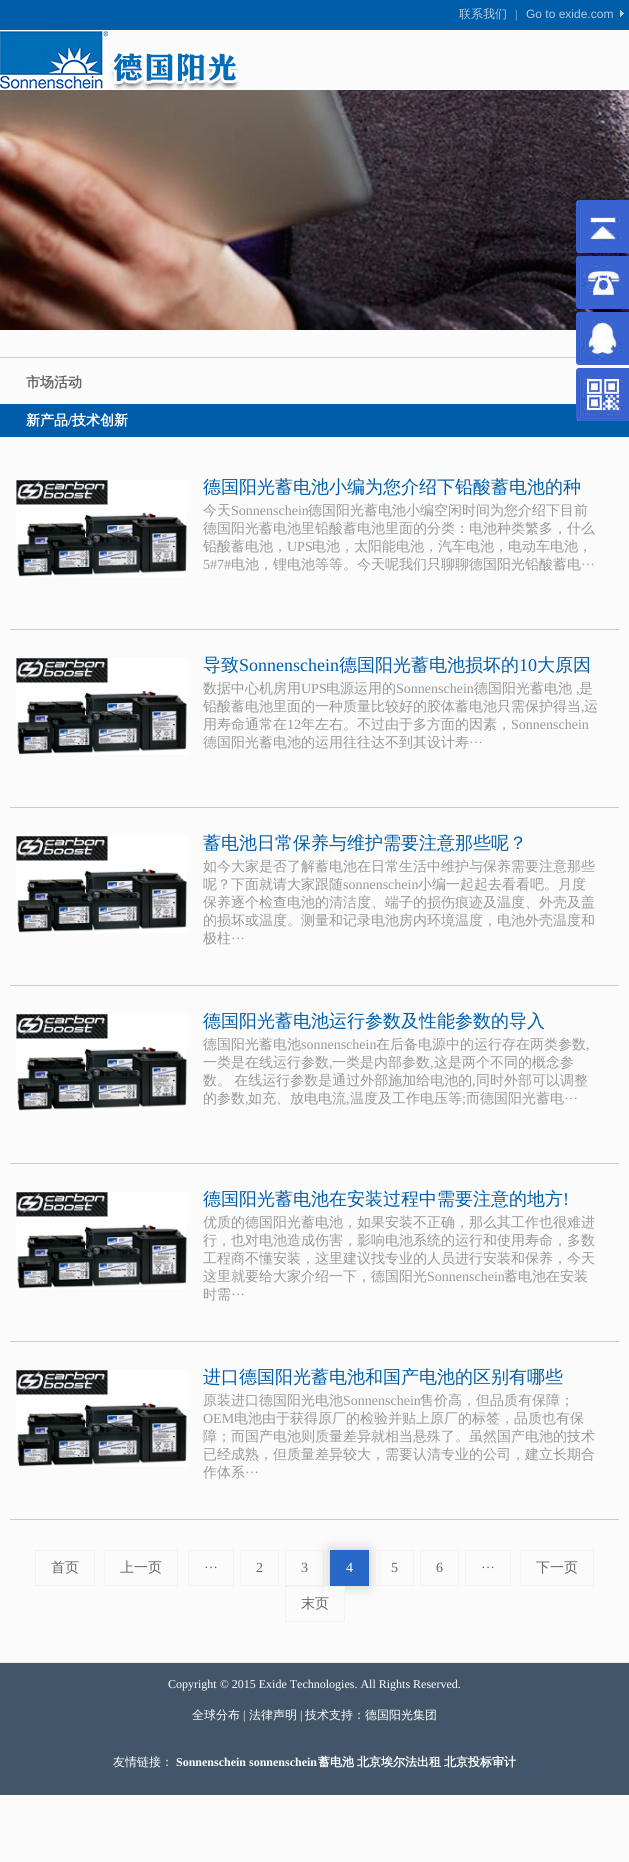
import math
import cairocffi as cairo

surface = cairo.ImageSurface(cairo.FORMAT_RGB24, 629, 1862)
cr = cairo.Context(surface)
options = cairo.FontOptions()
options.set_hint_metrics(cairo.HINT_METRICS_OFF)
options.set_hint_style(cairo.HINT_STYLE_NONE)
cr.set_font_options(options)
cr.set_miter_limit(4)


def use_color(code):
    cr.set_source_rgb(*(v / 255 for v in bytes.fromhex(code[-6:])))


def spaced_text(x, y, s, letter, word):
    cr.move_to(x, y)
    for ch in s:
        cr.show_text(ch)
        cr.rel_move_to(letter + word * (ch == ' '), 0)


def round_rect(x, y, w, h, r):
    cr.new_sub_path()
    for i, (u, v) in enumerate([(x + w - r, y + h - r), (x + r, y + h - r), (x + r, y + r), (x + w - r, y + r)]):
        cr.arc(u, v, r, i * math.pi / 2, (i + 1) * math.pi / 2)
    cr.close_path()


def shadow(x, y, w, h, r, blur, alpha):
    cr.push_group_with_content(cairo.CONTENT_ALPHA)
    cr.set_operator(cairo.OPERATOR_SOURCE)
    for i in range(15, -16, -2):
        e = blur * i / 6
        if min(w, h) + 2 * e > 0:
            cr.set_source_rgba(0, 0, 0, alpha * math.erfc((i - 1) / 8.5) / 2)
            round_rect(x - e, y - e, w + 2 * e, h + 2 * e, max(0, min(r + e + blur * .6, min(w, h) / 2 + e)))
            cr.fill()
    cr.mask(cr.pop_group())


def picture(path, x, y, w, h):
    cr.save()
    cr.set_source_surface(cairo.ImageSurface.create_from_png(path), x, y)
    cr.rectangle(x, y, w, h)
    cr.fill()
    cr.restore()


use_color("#fbfbfb")
cr.paint()
use_color("#005daa")
cr.rectangle(0, 0, 629, 30)
cr.fill()
cr.select_font_face("WenQuanYi Zen Hei Medium")
cr.set_font_size(12)
use_color("#b3cee4")
cr.move_to(459, 18)
cr.show_text("联系我们")
cr.select_font_face("Liberation Serif")
cr.move_to(515, 18)
cr.show_text("|")
cr.select_font_face("Liberation Sans")
cr.move_to(526, 18)
cr.show_text("Go to exide.com")
picture("img1.png", 620, 10, 4, 7)
picture("img2.png", 0, 31, 239, 59)
picture("img3.png", 0, 90, 629, 240)
use_color("#cccccc")
cr.rectangle(0, 357, 576, 1)
cr.fill()
cr.select_font_face("WenQuanYi Zen Hei", cairo.FONT_SLANT_NORMAL, cairo.FONT_WEIGHT_BOLD)
cr.set_font_size(14)
use_color("#666666")
cr.move_to(26, 387)
cr.show_text("市场活动")
use_color("#005daa")
cr.rectangle(0, 404, 629, 33)
cr.fill()
use_color("#ffffff")
cr.move_to(26, 425)
cr.show_text("新产品")
cr.select_font_face("Liberation Serif", cairo.FONT_SLANT_NORMAL, cairo.FONT_WEIGHT_BOLD)
cr.move_to(68, 425)
cr.show_text("/")
cr.select_font_face("WenQuanYi Zen Hei", cairo.FONT_SLANT_NORMAL, cairo.FONT_WEIGHT_BOLD)
cr.move_to(72, 425)
cr.show_text("技术创新")
use_color("#cccccc")
cr.rectangle(10, 629, 609, 1)
cr.fill()
picture("img4.png", 16, 480, 171, 97)
cr.select_font_face("WenQuanYi Zen Hei Medium")
cr.set_font_size(18)
use_color("#005daa")
cr.move_to(203, 493)
cr.show_text("德国阳光蓄电池小编为您介绍下铅酸蓄电池的种")
cr.set_font_size(14)
use_color("#999999")
cr.move_to(203, 515)
cr.show_text("今天")
cr.select_font_face("Liberation Serif")
cr.move_to(231, 515)
cr.show_text("Sonnenschein")
cr.select_font_face("WenQuanYi Zen Hei Medium")
cr.move_to(308, 515)
cr.show_text("德国阳光蓄电池小编空闲时间为您介绍下目前")
cr.move_to(203, 533)
cr.show_text("德国阳光蓄电池里铅酸蓄电池里面的分类：电池种类繁多，什么")
cr.move_to(203, 551)
cr.show_text("铅酸蓄电池，")
cr.select_font_face("Liberation Serif")
cr.move_to(287, 551)
cr.show_text("UPS")
cr.select_font_face("WenQuanYi Zen Hei Medium")
cr.move_to(312, 551)
cr.show_text("电池，太阳能电池，汽车电池，电动车电池，")
cr.select_font_face("Liberation Serif")
cr.move_to(203, 569)
cr.show_text("5#7#")
cr.select_font_face("WenQuanYi Zen Hei Medium")
cr.move_to(231, 569)
cr.show_text("电池，锂电池等等。今天呢我们只聊聊德国阳光铅酸蓄电")
cr.select_font_face("Liberation Serif")
cr.move_to(581, 569)
cr.show_text("···")
use_color("#cccccc")
cr.rectangle(10, 807, 609, 1)
cr.fill()
picture("img4.png", 16, 658, 171, 97)
cr.select_font_face("WenQuanYi Zen Hei Medium")
cr.set_font_size(18)
use_color("#005daa")
cr.move_to(203, 671)
cr.show_text("导致")
cr.select_font_face("Liberation Serif")
cr.move_to(239, 671)
cr.show_text("Sonnenschein")
cr.select_font_face("WenQuanYi Zen Hei Medium")
cr.move_to(339, 671)
cr.show_text("德国阳光蓄电池损坏的")
cr.select_font_face("Liberation Serif")
cr.move_to(519, 671)
cr.show_text("10")
cr.select_font_face("WenQuanYi Zen Hei Medium")
cr.move_to(537, 671)
cr.show_text("大原因")
cr.set_font_size(14)
use_color("#999999")
cr.move_to(203, 693)
cr.show_text("数据中心机房用")
cr.select_font_face("Liberation Serif")
cr.move_to(301, 693)
cr.show_text("UPS")
cr.select_font_face("WenQuanYi Zen Hei Medium")
cr.move_to(326, 693)
cr.show_text("电源运用的")
cr.select_font_face("Liberation Serif")
cr.move_to(396, 693)
cr.show_text("Sonnenschein")
cr.select_font_face("WenQuanYi Zen Hei Medium")
cr.move_to(474, 693)
cr.show_text("德国阳光蓄电池")
cr.select_font_face("Liberation Serif")
cr.move_to(576, 693)
cr.show_text(",")
cr.select_font_face("WenQuanYi Zen Hei Medium")
cr.move_to(579, 693)
cr.show_text("是")
cr.move_to(203, 711)
cr.show_text("铅酸蓄电池里面的一种质量比较好的胶体蓄电池只需保护得当")
cr.select_font_face("Liberation Serif")
cr.move_to(581, 711)
cr.show_text(",")
cr.select_font_face("WenQuanYi Zen Hei Medium")
cr.move_to(584, 711)
cr.show_text("运")
cr.move_to(203, 729)
cr.show_text("用寿命通常在")
cr.select_font_face("Liberation Serif")
cr.move_to(287, 729)
cr.show_text("12")
cr.select_font_face("WenQuanYi Zen Hei Medium")
cr.move_to(301, 729)
cr.show_text("年左右。不过由于多方面的因素，")
cr.select_font_face("Liberation Serif")
cr.move_to(511, 729)
cr.show_text("Sonnenschein")
cr.select_font_face("WenQuanYi Zen Hei Medium")
cr.move_to(203, 747)
cr.show_text("德国阳光蓄电池的运用往往达不到其设计寿")
cr.select_font_face("Liberation Serif")
cr.move_to(469, 747)
cr.show_text("···")
use_color("#cccccc")
cr.rectangle(10, 985, 609, 1)
cr.fill()
picture("img4.png", 16, 836, 171, 97)
cr.select_font_face("WenQuanYi Zen Hei Medium")
cr.set_font_size(18)
use_color("#005daa")
cr.move_to(203, 849)
cr.show_text("蓄电池日常保养与维护需要注意那些呢？")
cr.set_font_size(14)
use_color("#999999")
cr.move_to(203, 871)
cr.show_text("如今大家是否了解蓄电池在日常生活中维护与保养需要注意那些")
cr.move_to(203, 889)
cr.show_text("呢？下面就请大家跟随")
cr.select_font_face("Liberation Serif")
cr.move_to(343, 889)
cr.show_text("sonnenschein")
cr.select_font_face("WenQuanYi Zen Hei Medium")
cr.move_to(418, 889)
cr.show_text("小编一起起去看看吧。月度")
cr.move_to(203, 907)
cr.show_text("保养逐个检查电池的清洁度、端子的损伤痕迹及温度、外壳及盖")
cr.move_to(203, 925)
cr.show_text("的损坏或温度。测量和记录电池房内环境温度，电池外壳温度和")
cr.move_to(203, 943)
cr.show_text("极柱")
cr.select_font_face("Liberation Serif")
cr.move_to(231, 943)
cr.show_text("···")
use_color("#cccccc")
cr.rectangle(10, 1163, 609, 1)
cr.fill()
picture("img4.png", 16, 1014, 171, 97)
cr.select_font_face("WenQuanYi Zen Hei Medium")
cr.set_font_size(18)
use_color("#005daa")
cr.move_to(203, 1027)
cr.show_text("德国阳光蓄电池运行参数及性能参数的导入")
cr.set_font_size(14)
use_color("#999999")
cr.move_to(203, 1049)
cr.show_text("德国阳光蓄电池")
cr.select_font_face("Liberation Serif")
cr.move_to(301, 1049)
cr.show_text("sonnenschein")
cr.select_font_face("WenQuanYi Zen Hei Medium")
cr.move_to(376, 1049)
cr.show_text("在后备电源中的运行存在两类参数")
cr.select_font_face("Liberation Serif")
cr.move_to(586, 1049)
cr.show_text(",")
cr.select_font_face("WenQuanYi Zen Hei Medium")
cr.move_to(203, 1067)
cr.show_text("一类是在线运行参数")
cr.select_font_face("Liberation Serif")
cr.move_to(329, 1067)
cr.show_text(",")
cr.select_font_face("WenQuanYi Zen Hei Medium")
cr.move_to(332, 1067)
cr.show_text("一类是内部参数")
cr.select_font_face("Liberation Serif")
cr.move_to(430, 1067)
cr.show_text(",")
cr.select_font_face("WenQuanYi Zen Hei Medium")
cr.move_to(434, 1067)
cr.show_text("这是两个不同的概念参")
spaced_text(203, 1085, "数。 在线运行参数是通过外部施加给电池的", 0, -1)
cr.select_font_face("Liberation Serif")
cr.move_to(472, 1085)
cr.show_text(",")
cr.select_font_face("WenQuanYi Zen Hei Medium")
cr.move_to(476, 1085)
cr.show_text("同时外部可以调整")
cr.move_to(203, 1103)
cr.show_text("的参数")
cr.move_to(248, 1103)
cr.show_text("如充、放电电流")
cr.move_to(350, 1103)
cr.show_text("温度及工作电压等")
cr.select_font_face("Liberation Serif")
cr.move_to(462, 1103)
cr.show_text(";")
cr.select_font_face("WenQuanYi Zen Hei Medium")
cr.move_to(466, 1103)
cr.show_text("而德国阳光蓄电")
cr.select_font_face("Liberation Serif")
cr.move_to(564, 1103)
cr.show_text("···")
cr.move_to(245, 1103)
cr.show_text(",")
cr.move_to(346, 1103)
cr.show_text(",")
use_color("#cccccc")
cr.rectangle(10, 1341, 609, 1)
cr.fill()
picture("img5.png", 16, 1192, 171, 97)
cr.select_font_face("WenQuanYi Zen Hei Medium")
cr.set_font_size(18)
use_color("#005daa")
cr.move_to(203, 1205)
cr.show_text("德国阳光蓄电池在安装过程中需要注意的地方")
cr.select_font_face("Liberation Serif")
cr.move_to(563, 1205)
cr.show_text("!")
cr.select_font_face("WenQuanYi Zen Hei Medium")
cr.set_font_size(14)
use_color("#999999")
cr.move_to(203, 1227)
cr.show_text("优质的德国阳光蓄电池，如果安装不正确，那么其工作也很难进")
cr.move_to(203, 1245)
cr.show_text("行，也对电池造成伤害，影响电池系统的运行和使用寿命，多数")
cr.move_to(203, 1263)
cr.show_text("工程商不懂安装，这里建议找专业的人员进行安装和保养，今天")
cr.move_to(203, 1281)
cr.show_text("这里就要给大家介绍一下，德国阳光")
cr.select_font_face("Liberation Serif")
cr.move_to(427, 1281)
cr.show_text("Sonnenschein")
cr.select_font_face("WenQuanYi Zen Hei Medium")
cr.move_to(504, 1281)
cr.show_text("蓄电池在安装")
cr.move_to(203, 1299)
cr.show_text("时需")
cr.select_font_face("Liberation Serif")
cr.move_to(231, 1299)
cr.show_text("···")
use_color("#cccccc")
cr.rectangle(10, 1519, 609, 1)
cr.fill()
picture("img5.png", 16, 1370, 171, 97)
cr.select_font_face("WenQuanYi Zen Hei Medium")
cr.set_font_size(18)
use_color("#005daa")
cr.move_to(203, 1383)
cr.show_text("进口德国阳光蓄电池和国产电池的区别有哪些")
cr.set_font_size(14)
use_color("#999999")
cr.move_to(203, 1405)
cr.show_text("原装进口德国阳光电池")
cr.select_font_face("Liberation Serif")
cr.move_to(343, 1405)
cr.show_text("Sonnenschein")
cr.select_font_face("WenQuanYi Zen Hei Medium")
cr.move_to(420, 1405)
cr.show_text("售价高，但品质有保障；")
cr.select_font_face("Liberation Serif")
cr.move_to(203, 1423)
cr.show_text("OEM")
cr.select_font_face("WenQuanYi Zen Hei Medium")
cr.move_to(234, 1423)
cr.show_text("电池由于获得原厂的检验并贴上原厂的标签，品质也有保")
cr.move_to(203, 1441)
cr.show_text("障；而国产电池则质量差异就相当悬殊了。虽然国产电池的技术")
cr.move_to(203, 1459)
cr.show_text("已经成熟，但质量差异较大，需要认清专业的公司，建立长期合")
cr.move_to(203, 1477)
cr.show_text("作体系")
cr.select_font_face("Liberation Serif")
cr.move_to(245, 1477)
cr.show_text("···")
cr.rectangle(35.5, 1550.5, 59, 35)
use_color("#f2f2f2")
cr.set_line_width(1)
cr.stroke()
cr.select_font_face("WenQuanYi Zen Hei Medium")
use_color("#666666")
cr.move_to(51, 1572)
cr.show_text("首页")
cr.rectangle(104.5, 1550.5, 73, 35)
use_color("#f2f2f2")
cr.stroke()
use_color("#666666")
cr.move_to(120, 1572)
cr.show_text("上一页")
cr.rectangle(188.5, 1550.5, 45, 35)
use_color("#f2f2f2")
cr.stroke()
cr.select_font_face("Liberation Serif")
use_color("#666666")
cr.move_to(204, 1572)
cr.show_text("···")
cr.rectangle(240.5, 1550.5, 38, 35)
use_color("#f2f2f2")
cr.stroke()
use_color("#666666")
cr.move_to(256, 1572)
cr.show_text("2")
cr.rectangle(285.5, 1550.5, 38, 35)
use_color("#f2f2f2")
cr.stroke()
use_color("#666666")
cr.move_to(301, 1572)
cr.show_text("3")
use_color("#000000")
shadow(330, 1550, 39, 36, 0, 7, 0.2)
use_color("#2768c7")
cr.rectangle(330, 1550, 39, 36)
cr.fill()
use_color("#ffffff")
cr.move_to(346, 1572)
cr.show_text("4")
use_color("#f9f9f9")
cr.rectangle(376, 1553, 2, 30)
cr.fill()
cr.rectangle(375.5, 1550.5, 38, 35)
use_color("#f2f2f2")
cr.stroke()
use_color("#666666")
cr.move_to(391, 1572)
cr.show_text("5")
cr.rectangle(420.5, 1550.5, 38, 35)
use_color("#f2f2f2")
cr.stroke()
use_color("#666666")
cr.move_to(436, 1572)
cr.show_text("6")
cr.rectangle(465.5, 1550.5, 45, 35)
use_color("#f2f2f2")
cr.stroke()
use_color("#666666")
cr.move_to(481, 1572)
cr.show_text("···")
cr.rectangle(520.5, 1550.5, 73, 35)
use_color("#f2f2f2")
cr.stroke()
cr.select_font_face("WenQuanYi Zen Hei Medium")
use_color("#666666")
cr.move_to(536, 1572)
cr.show_text("下一页")
use_color("#f9f9f9")
cr.rectangle(325, 1587, 19, 8)
cr.fill()
cr.rectangle(285.5, 1586.5, 59, 35)
use_color("#f2f2f2")
cr.stroke()
use_color("#666666")
cr.move_to(301, 1608)
cr.show_text("末页")
use_color("#435669")
cr.rectangle(0, 1663, 629, 132)
cr.fill()
use_color("#eaeaea")
cr.rectangle(0, 1662, 629, 1)
cr.fill()
use_color("#3963d1")
round_rect(576, 200, 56, 53, 3)
cr.fill()
picture("img6.png", 577, 201, 45, 52)
round_rect(576, 256, 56, 53, 3)
cr.fill()
picture("img7.png", 577, 256, 45, 53)
round_rect(576, 312, 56, 53, 3)
cr.fill()
picture("img8.png", 577, 312, 45, 53)
round_rect(576, 368, 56, 53, 3)
cr.fill()
picture("img9.png", 577, 368, 45, 53)
cr.select_font_face("Liberation Serif")
cr.set_font_size(12)
use_color("#ffffff")
cr.move_to(168, 1688)
cr.show_text("Copyright © 2015 Exide Technologies. All Rights Reserved.")
cr.select_font_face("WenQuanYi Zen Hei Medium")
cr.move_to(192, 1719)
cr.show_text("全球分布")
cr.select_font_face("Liberation Serif")
cr.move_to(243, 1719)
cr.show_text("|")
cr.select_font_face("WenQuanYi Zen Hei Medium")
cr.move_to(249, 1719)
cr.show_text("法律声明")
cr.select_font_face("Liberation Serif")
cr.move_to(300, 1719)
cr.show_text("|")
cr.select_font_face("WenQuanYi Zen Hei Medium")
cr.move_to(305, 1719)
cr.show_text("技术支持：德国阳光集团")
cr.move_to(113, 1766)
cr.show_text("友情链接：")
cr.select_font_face("Liberation Serif", cairo.FONT_SLANT_NORMAL, cairo.FONT_WEIGHT_BOLD)
cr.move_to(176, 1766)
cr.show_text("Sonnenschein sonnenschein")
cr.select_font_face("WenQuanYi Zen Hei", cairo.FONT_SLANT_NORMAL, cairo.FONT_WEIGHT_BOLD)
cr.move_to(318, 1766)
cr.show_text("蓄电池")
cr.move_to(357, 1766)
cr.show_text("北京埃尔法出租")
cr.move_to(444, 1766)
cr.show_text("北京投标审计")
surface.write_to_png("result.png")
